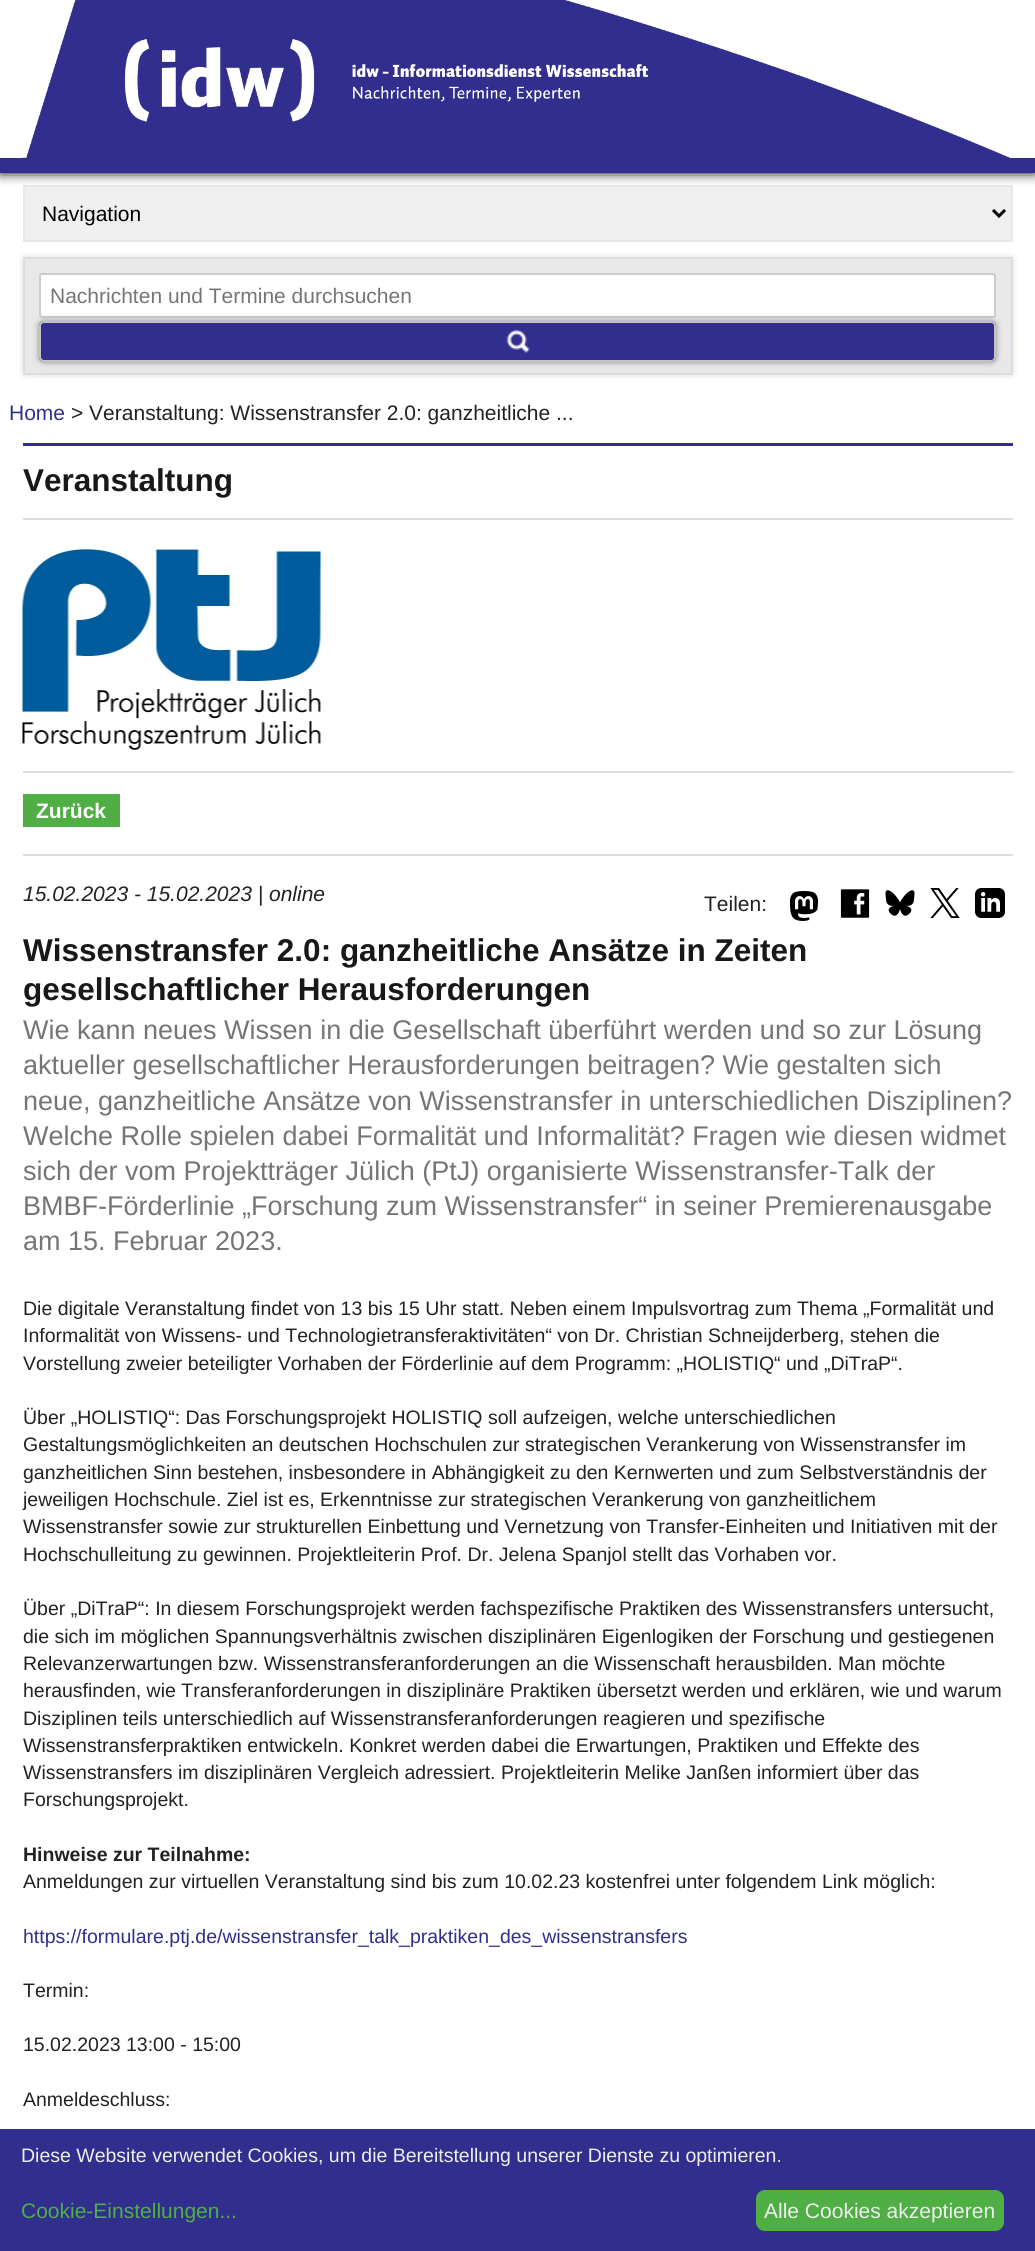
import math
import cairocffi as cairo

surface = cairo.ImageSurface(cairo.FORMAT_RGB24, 1035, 2251)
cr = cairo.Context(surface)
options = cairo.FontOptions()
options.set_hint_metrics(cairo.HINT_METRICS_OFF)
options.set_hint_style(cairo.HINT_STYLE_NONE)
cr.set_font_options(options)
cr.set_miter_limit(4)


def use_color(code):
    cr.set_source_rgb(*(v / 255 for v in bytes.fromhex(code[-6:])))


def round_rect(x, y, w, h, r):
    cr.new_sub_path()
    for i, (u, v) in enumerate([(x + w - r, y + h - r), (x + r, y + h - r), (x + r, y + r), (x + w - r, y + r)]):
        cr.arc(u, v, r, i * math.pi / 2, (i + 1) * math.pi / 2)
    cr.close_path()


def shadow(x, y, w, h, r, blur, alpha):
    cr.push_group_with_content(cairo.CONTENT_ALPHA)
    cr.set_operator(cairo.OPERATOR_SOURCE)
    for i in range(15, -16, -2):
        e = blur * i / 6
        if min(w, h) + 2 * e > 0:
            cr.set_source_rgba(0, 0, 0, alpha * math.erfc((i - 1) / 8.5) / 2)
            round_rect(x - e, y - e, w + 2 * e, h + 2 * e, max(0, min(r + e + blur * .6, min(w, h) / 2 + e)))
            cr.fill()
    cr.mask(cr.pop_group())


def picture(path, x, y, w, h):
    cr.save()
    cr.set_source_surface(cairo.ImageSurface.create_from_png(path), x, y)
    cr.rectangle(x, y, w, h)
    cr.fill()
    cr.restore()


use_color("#ffffff")
cr.paint()
cr.save()
cr.rectangle(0, 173, 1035, 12)
cr.clip()
use_color("#000000")
shadow(0, 0, 1035, 173, 0, 6, 1)
cr.restore()
use_color("#322e8d")
cr.rectangle(0, 158, 1035, 15)
cr.fill()
picture("img1.png", 22, 0, 988, 158)
use_color("#efefef")
cr.rectangle(24, 186, 988, 55)
cr.fill_preserve()
use_color("#e8e8e8")
cr.stroke()
cr.new_path()
cr.move_to(993, 210)
cr.line_to(999, 216)
cr.line_to(1005, 210)
use_color("#000000")
cr.set_line_width(3)
cr.stroke()
cr.select_font_face("Liberation Sans")
cr.set_font_size(21)
cr.move_to(42, 221)
cr.show_text("Navigation")
use_color("#dddddd")
shadow(23, 257, 990, 118, 0, 3, 1)
use_color("#e8e8e8")
cr.rectangle(24, 258, 988, 116)
cr.fill_preserve()
use_color("#dddddd")
cr.set_line_width(2)
cr.stroke()
use_color("#ffffff")
round_rect(40, 274, 955, 43, 2)
cr.fill_preserve()
use_color("#cccccc")
cr.stroke()
use_color("#757575")
cr.move_to(50, 303)
cr.show_text("Nachrichten und Termine durchsuchen")
use_color("#888888")
shadow(39, 321, 957, 41, 5, 3, 1)
use_color("#322e8d")
round_rect(39, 321, 957, 41, 5)
cr.fill()
picture("img2.png", 506, 330, 24, 23)
round_rect(40, 322, 955, 39, 4)
use_color("#c3c3c3")
cr.stroke()
use_color("#322e8d")
cr.move_to(9, 420)
cr.show_text("Home")
use_color("#222222")
cr.move_to(71, 420)
cr.show_text("> Veranstaltung: Wissenstransfer 2.0: ganzheitliche ...")
use_color("#322e8d")
cr.rectangle(23, 443, 990, 3)
cr.fill()
cr.select_font_face("Liberation Sans", cairo.FONT_SLANT_NORMAL, cairo.FONT_WEIGHT_BOLD)
cr.set_font_size(31.5)
use_color("#181818")
cr.move_to(23, 491)
cr.show_text("Veranstaltung")
use_color("#dddddd")
cr.rectangle(23, 518, 990, 2)
cr.fill()
picture("img3.png", 22, 548, 300, 202)
cr.rectangle(23, 771, 990, 2)
cr.fill()
use_color("#4faf45")
cr.rectangle(23, 794, 97, 33)
cr.fill()
cr.set_font_size(21)
use_color("#ffffff")
cr.move_to(36, 818)
cr.show_text("Zurück")
use_color("#dddddd")
cr.rectangle(23, 854, 990, 2)
cr.fill()
cr.select_font_face("Liberation Sans", cairo.FONT_SLANT_ITALIC)
use_color("#222222")
cr.move_to(23, 901)
cr.show_text("15.02.2023 - 15.02.2023 | online")
cr.select_font_face("Liberation Sans")
cr.move_to(704, 911)
cr.show_text("Teilen:")
picture("img4.png", 790, 891, 28, 30)
picture("img5.png", 840, 889, 30, 29)
picture("img6.png", 885, 890, 30, 26)
picture("img7.png", 930, 888, 30, 30)
picture("img8.png", 975, 888, 30, 30)
cr.select_font_face("Liberation Sans", cairo.FONT_SLANT_NORMAL, cairo.FONT_WEIGHT_BOLD)
cr.set_font_size(31.5)
use_color("#181818")
cr.move_to(23, 961)
cr.show_text("Wissenstransfer 2.0: ganzheitliche Ansätze in Zeiten")
cr.move_to(23, 1000)
cr.show_text("gesellschaftlicher Herausforderungen")
cr.select_font_face("Liberation Sans")
cr.set_font_size(27)
use_color("#757575")
cr.move_to(23, 1039)
cr.show_text("Wie kann neues Wissen in die Gesellschaft überführt werden und so zur Lösung")
cr.move_to(23, 1074)
cr.show_text("aktueller gesellschaftlicher Herausforderungen beitragen? Wie gestalten sich")
cr.move_to(23, 1110)
cr.show_text("neue, ganzheitliche Ansätze von Wissenstransfer in unterschiedlichen Disziplinen?")
cr.move_to(23, 1145)
cr.show_text("Welche Rolle spielen dabei Formalität und Informalität? Fragen wie diesen widmet")
cr.move_to(23, 1180)
cr.show_text("sich der vom Projektträger Jülich (PtJ) organisierte Wissenstransfer-Talk der")
cr.move_to(23, 1215)
cr.show_text("BMBF-Förderlinie „Forschung zum Wissenstransfer“ in seiner Premierenausgabe")
cr.move_to(23, 1250)
cr.show_text("am 15. Februar 2023.")
cr.set_font_size(19.5)
use_color("#222222")
cr.move_to(23, 1315)
cr.show_text("Die digitale Veranstaltung findet von 13 bis 15 Uhr statt. Neben einem Impulsvortrag zum Thema „Formalität und")
cr.move_to(23, 1342)
cr.show_text("Informalität von Wissens- und Technologietransferaktivitäten“ von Dr. Christian Schneijderberg, stehen die")
cr.move_to(23, 1370)
cr.show_text("Vorstellung zweier beteiligter Vorhaben der Förderlinie auf dem Programm: „HOLISTIQ“ und „DiTraP“.")
cr.move_to(23, 1424)
cr.show_text("Über „HOLISTIQ“: Das Forschungsprojekt HOLISTIQ soll aufzeigen, welche unterschiedlichen")
cr.move_to(23, 1451)
cr.show_text("Gestaltungsmöglichkeiten an deutschen Hochschulen zur strategischen Verankerung von Wissenstransfer im")
cr.move_to(23, 1479)
cr.show_text("ganzheitlichen Sinn bestehen, insbesondere in Abhängigkeit zu den Kernwerten und zum Selbstverständnis der")
cr.move_to(23, 1506)
cr.show_text("jeweiligen Hochschule. Ziel ist es, Erkenntnisse zur strategischen Verankerung von ganzheitlichem")
cr.move_to(23, 1533)
cr.show_text("Wissenstransfer sowie zur strukturellen Einbettung und Vernetzung von Transfer-Einheiten und Initiativen mit der")
cr.move_to(23, 1561)
cr.show_text("Hochschulleitung zu gewinnen. Projektleiterin Prof. Dr. Jelena Spanjol stellt das Vorhaben vor.")
cr.move_to(23, 1615)
cr.show_text("Über „DiTraP“: In diesem Forschungsprojekt werden fachspezifische Praktiken des Wissenstransfers untersucht,")
cr.move_to(23, 1643)
cr.show_text("die sich im möglichen Spannungsverhältnis zwischen disziplinären Eigenlogiken der Forschung und gestiegenen")
cr.move_to(23, 1670)
cr.show_text("Relevanzerwartungen bzw. Wissenstransferanforderungen an die Wissenschaft herausbilden. Man möchte")
cr.move_to(23, 1697)
cr.show_text("herausfinden, wie Transferanforderungen in disziplinäre Praktiken übersetzt werden und erklären, wie und warum")
cr.move_to(23, 1725)
cr.show_text("Disziplinen teils unterschiedlich auf Wissenstransferanforderungen reagieren und spezifische")
cr.move_to(23, 1752)
cr.show_text("Wissenstransferpraktiken entwickeln. Konkret werden dabei die Erwartungen, Praktiken und Effekte des")
cr.move_to(23, 1779)
cr.show_text("Wissenstransfers im disziplinären Vergleich adressiert. Projektleiterin Melike Janßen informiert über das")
cr.move_to(23, 1806)
cr.show_text("Forschungsprojekt.")
cr.select_font_face("Liberation Sans", cairo.FONT_SLANT_NORMAL, cairo.FONT_WEIGHT_BOLD)
cr.move_to(23, 1861)
cr.show_text("Hinweise zur Teilnahme:")
cr.select_font_face("Liberation Sans")
cr.move_to(23, 1888)
cr.show_text("Anmeldungen zur virtuellen Veranstaltung sind bis zum 10.02.23 kostenfrei unter folgendem Link möglich:")
use_color("#322e8d")
cr.move_to(23, 1943)
cr.show_text("https://formulare.ptj.de/wissenstransfer_talk_praktiken_des_wissenstransfers")
use_color("#222222")
cr.move_to(23, 1997)
cr.show_text("Termin:")
cr.move_to(23, 2051)
cr.show_text("15.02.2023 13:00 - 15:00")
cr.move_to(23, 2106)
cr.show_text("Anmeldeschluss:")
use_color("#322e8d")
cr.rectangle(0, 2129, 1035, 122)
cr.fill()
use_color("#eeeeee")
cr.move_to(21, 2162)
cr.show_text("Diese Website verwendet Cookies, um die Bereitstellung unserer Dienste zu optimieren.")
cr.set_font_size(21)
use_color("#4faf45")
cr.move_to(21, 2218)
cr.show_text("Cookie-Einstellungen...")
round_rect(756, 2190, 248, 41, 9)
cr.fill()
use_color("#eeeeee")
cr.move_to(764, 2218)
cr.show_text("Alle Cookies akzeptieren")
surface.write_to_png("result.png")
